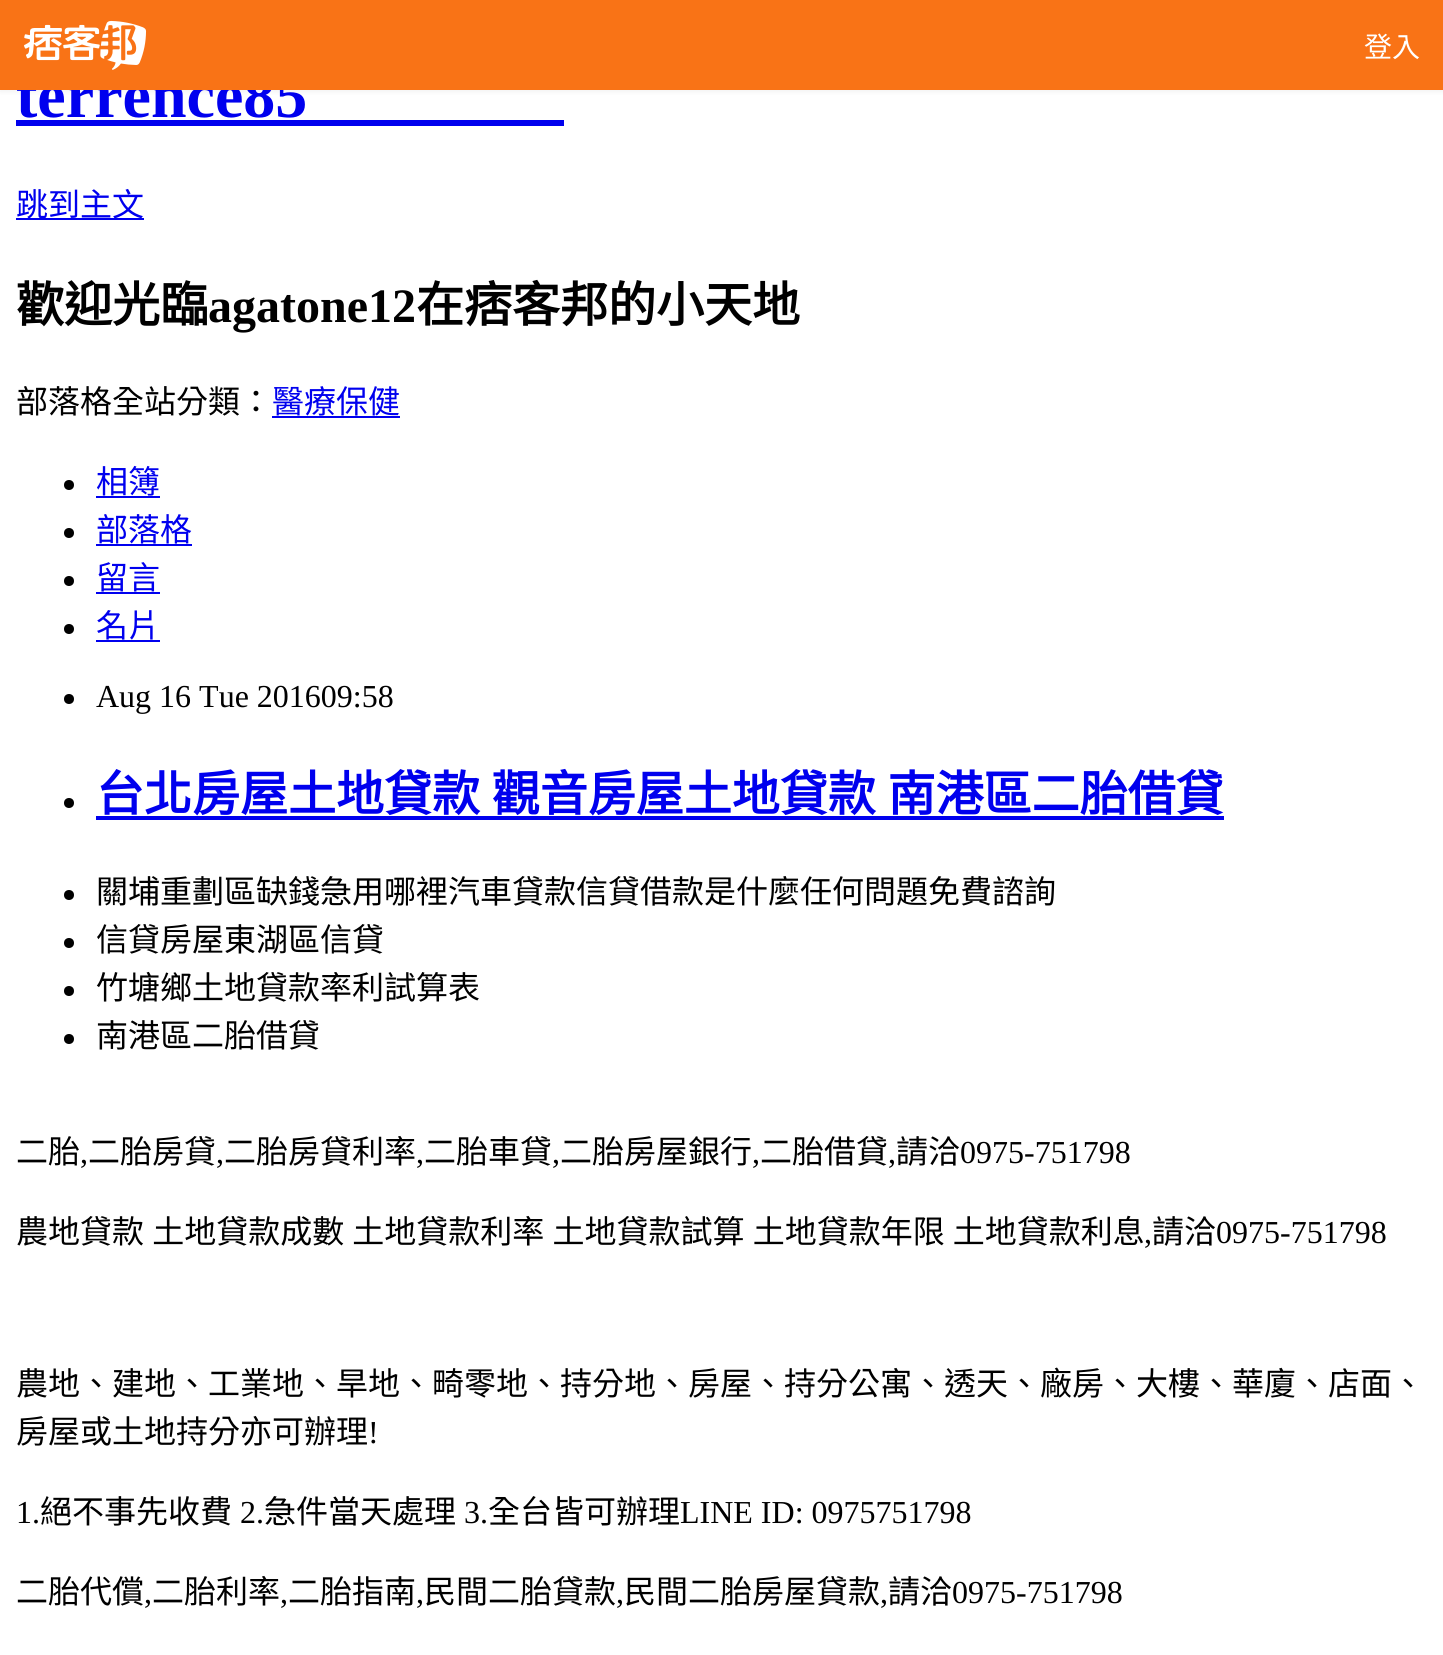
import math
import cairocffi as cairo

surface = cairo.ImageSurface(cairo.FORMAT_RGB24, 1443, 1655)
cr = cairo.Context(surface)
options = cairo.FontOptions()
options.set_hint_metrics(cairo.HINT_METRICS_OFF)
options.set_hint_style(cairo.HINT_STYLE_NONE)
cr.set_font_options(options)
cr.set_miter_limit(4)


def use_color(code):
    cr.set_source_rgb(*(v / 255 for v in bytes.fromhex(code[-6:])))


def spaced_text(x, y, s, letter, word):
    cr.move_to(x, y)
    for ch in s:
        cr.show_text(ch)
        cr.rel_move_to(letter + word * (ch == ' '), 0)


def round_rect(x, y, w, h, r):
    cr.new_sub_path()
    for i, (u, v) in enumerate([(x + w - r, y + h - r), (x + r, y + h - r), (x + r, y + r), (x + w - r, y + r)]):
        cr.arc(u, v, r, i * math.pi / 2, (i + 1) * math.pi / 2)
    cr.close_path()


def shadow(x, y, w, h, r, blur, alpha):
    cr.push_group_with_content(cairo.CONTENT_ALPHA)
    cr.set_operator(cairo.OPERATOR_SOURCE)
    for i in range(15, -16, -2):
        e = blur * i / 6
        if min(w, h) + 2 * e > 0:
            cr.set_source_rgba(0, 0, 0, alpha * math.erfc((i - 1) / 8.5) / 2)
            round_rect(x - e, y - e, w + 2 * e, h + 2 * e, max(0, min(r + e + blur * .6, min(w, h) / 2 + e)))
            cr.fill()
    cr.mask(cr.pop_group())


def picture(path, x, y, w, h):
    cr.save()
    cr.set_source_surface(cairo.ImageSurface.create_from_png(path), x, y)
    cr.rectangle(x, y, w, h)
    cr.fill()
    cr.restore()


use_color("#ffffff")
cr.paint()
use_color("#000000")
shadow(0, 2, 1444, 90, 0, 2, 0.05)
cr.select_font_face("Liberation Serif", cairo.FONT_SLANT_NORMAL, cairo.FONT_WEIGHT_BOLD)
cr.set_font_size(64)
use_color("#0000ee")
cr.move_to(16, 117)
cr.show_text("terrence85")
use_color("#f97316")
cr.rectangle(0, 0, 1443, 90)
cr.fill()
picture("img1.png", 24, 20, 123, 50)
cr.select_font_face("Noto Sans CJK TC")
cr.set_font_size(28)
use_color("#ffffff")
cr.move_to(1364, 57)
cr.show_text("登入")
use_color("#0000ee")
cr.rectangle(16, 120, 548, 6)
cr.fill()
cr.rectangle(16, 218, 128, 2)
cr.fill()
cr.set_font_size(32)
cr.move_to(16, 216)
cr.show_text("跳到主文")
cr.select_font_face("Noto Sans CJK TC", cairo.FONT_SLANT_NORMAL, cairo.FONT_WEIGHT_BOLD)
cr.set_font_size(48)
use_color("#000000")
cr.move_to(16, 322)
cr.show_text("歡迎光臨")
cr.select_font_face("Liberation Serif", cairo.FONT_SLANT_NORMAL, cairo.FONT_WEIGHT_BOLD)
cr.move_to(208, 322)
cr.show_text("agatone12")
cr.select_font_face("Noto Sans CJK TC", cairo.FONT_SLANT_NORMAL, cairo.FONT_WEIGHT_BOLD)
cr.move_to(416, 322)
cr.show_text("在痞客邦的小天地")
cr.select_font_face("Noto Sans CJK TC")
cr.set_font_size(32)
cr.move_to(16, 413)
cr.show_text("部落格全站分類：")
use_color("#0000ee")
cr.move_to(272, 413)
cr.show_text("醫療保健")
cr.rectangle(272, 416, 128, 2)
cr.fill()
use_color("#000000")
cr.arc(69, 485, 5, 0, 2 * math.pi)
cr.fill()
use_color("#0000ee")
cr.move_to(96, 493)
cr.show_text("相簿")
cr.rectangle(96, 496, 64, 2)
cr.fill()
use_color("#000000")
cr.arc(69, 533, 5, 0, 2 * math.pi)
cr.fill()
use_color("#0000ee")
cr.move_to(96, 541)
cr.show_text("部落格")
cr.rectangle(96, 544, 96, 2)
cr.fill()
use_color("#000000")
cr.arc(69, 581, 5, 0, 2 * math.pi)
cr.fill()
use_color("#0000ee")
cr.move_to(96, 589)
cr.show_text("留言")
cr.rectangle(96, 592, 64, 2)
cr.fill()
use_color("#000000")
cr.arc(69, 629, 5, 0, 2 * math.pi)
cr.fill()
use_color("#0000ee")
cr.move_to(96, 637)
cr.show_text("名片")
cr.rectangle(96, 640, 64, 2)
cr.fill()
use_color("#000000")
cr.arc(69, 699, 5, 0, 2 * math.pi)
cr.fill()
cr.select_font_face("Liberation Serif")
cr.move_to(96, 707)
cr.show_text("Aug 16 Tue 201609:58")
cr.new_path()
cr.arc(69, 803, 5, 0, 2 * math.pi)
cr.fill()
cr.select_font_face("Noto Sans CJK TC", cairo.FONT_SLANT_NORMAL, cairo.FONT_WEIGHT_BOLD)
cr.set_font_size(48)
use_color("#0000ee")
spaced_text(96, 811, "台北房屋土地貸款 觀音房屋土地貸款 南港區二胎借貸", 0, 1)
cr.rectangle(96, 816, 1128, 4)
cr.fill()
use_color("#000000")
cr.arc(69, 895, 5, 0, 2 * math.pi)
cr.fill()
cr.select_font_face("Noto Sans CJK TC")
cr.set_font_size(32)
cr.move_to(96, 903)
cr.show_text("關埔重劃區缺錢急用哪裡汽車貸款信貸借款是什麼任何問題免費諮詢")
cr.new_path()
cr.arc(69, 943, 5, 0, 2 * math.pi)
cr.fill()
cr.move_to(96, 951)
cr.show_text("信貸房屋東湖區信貸")
cr.new_path()
cr.arc(69, 991, 5, 0, 2 * math.pi)
cr.fill()
cr.move_to(96, 999)
cr.show_text("竹塘鄉土地貸款率利試算表")
cr.new_path()
cr.arc(69, 1039, 5, 0, 2 * math.pi)
cr.fill()
cr.move_to(96, 1047)
cr.show_text("南港區二胎借貸")
cr.move_to(16, 1163)
cr.show_text("二胎")
cr.select_font_face("Liberation Serif")
cr.move_to(80, 1163)
cr.show_text(",")
cr.select_font_face("Noto Sans CJK TC")
cr.move_to(88, 1163)
cr.show_text("二胎房貸")
cr.select_font_face("Liberation Serif")
cr.move_to(216, 1163)
cr.show_text(",")
cr.select_font_face("Noto Sans CJK TC")
cr.move_to(224, 1163)
cr.show_text("二胎房貸利率")
cr.select_font_face("Liberation Serif")
cr.move_to(416, 1163)
cr.show_text(",")
cr.select_font_face("Noto Sans CJK TC")
cr.move_to(424, 1163)
cr.show_text("二胎車貸")
cr.select_font_face("Liberation Serif")
cr.move_to(552, 1163)
cr.show_text(",")
cr.select_font_face("Noto Sans CJK TC")
cr.move_to(560, 1163)
cr.show_text("二胎房屋銀行")
cr.select_font_face("Liberation Serif")
cr.move_to(752, 1163)
cr.show_text(",")
cr.select_font_face("Noto Sans CJK TC")
cr.move_to(760, 1163)
cr.show_text("二胎借貸")
cr.select_font_face("Liberation Serif")
cr.move_to(888, 1163)
cr.show_text(",")
cr.select_font_face("Noto Sans CJK TC")
cr.move_to(896, 1163)
cr.show_text("請洽")
cr.select_font_face("Liberation Serif")
cr.move_to(960, 1163)
cr.show_text("0975-751798")
cr.select_font_face("Noto Sans CJK TC")
spaced_text(16, 1243, "農地貸款 土地貸款成數 土地貸款利率 土地貸款試算 土地貸款年限 土地貸款利息", 0, 1)
cr.select_font_face("Liberation Serif")
cr.move_to(1144, 1243)
cr.show_text(",")
cr.select_font_face("Noto Sans CJK TC")
cr.move_to(1152, 1243)
cr.show_text("請洽")
cr.select_font_face("Liberation Serif")
cr.move_to(1216, 1243)
cr.show_text("0975-751798")
cr.select_font_face("Noto Sans CJK TC")
cr.move_to(16, 1395)
cr.show_text("農地、建地、工業地、旱地、畸零地、持分地、房屋、持分公寓、透天、廠房、大樓、華廈、店面、")
cr.move_to(16, 1443)
cr.show_text("房屋或土地持分亦可辦理")
cr.select_font_face("Liberation Serif")
cr.move_to(368, 1443)
cr.show_text("!")
cr.move_to(16, 1523)
cr.show_text("1.")
cr.select_font_face("Noto Sans CJK TC")
cr.move_to(40, 1523)
cr.show_text("絕不事先收費")
cr.select_font_face("Liberation Serif")
cr.move_to(240, 1523)
cr.show_text("2.")
cr.select_font_face("Noto Sans CJK TC")
cr.move_to(264, 1523)
cr.show_text("急件當天處理")
cr.select_font_face("Liberation Serif")
cr.move_to(464, 1523)
cr.show_text("3.")
cr.select_font_face("Noto Sans CJK TC")
cr.move_to(488, 1523)
cr.show_text("全台皆可辦理")
cr.select_font_face("Liberation Serif")
cr.move_to(680, 1523)
cr.show_text("LINE ID: 0975751798")
cr.select_font_face("Noto Sans CJK TC")
cr.move_to(16, 1603)
cr.show_text("二胎代償")
cr.select_font_face("Liberation Serif")
cr.move_to(144, 1603)
cr.show_text(",")
cr.select_font_face("Noto Sans CJK TC")
cr.move_to(152, 1603)
cr.show_text("二胎利率")
cr.select_font_face("Liberation Serif")
cr.move_to(280, 1603)
cr.show_text(",")
cr.select_font_face("Noto Sans CJK TC")
cr.move_to(288, 1603)
cr.show_text("二胎指南")
cr.select_font_face("Liberation Serif")
cr.move_to(416, 1603)
cr.show_text(",")
cr.select_font_face("Noto Sans CJK TC")
cr.move_to(424, 1603)
cr.show_text("民間二胎貸款")
cr.select_font_face("Liberation Serif")
cr.move_to(616, 1603)
cr.show_text(",")
cr.select_font_face("Noto Sans CJK TC")
cr.move_to(624, 1603)
cr.show_text("民間二胎房屋貸款")
cr.select_font_face("Liberation Serif")
cr.move_to(880, 1603)
cr.show_text(",")
cr.select_font_face("Noto Sans CJK TC")
cr.move_to(888, 1603)
cr.show_text("請洽")
cr.select_font_face("Liberation Serif")
cr.move_to(952, 1603)
cr.show_text("0975-751798")
surface.write_to_png("result.png")
